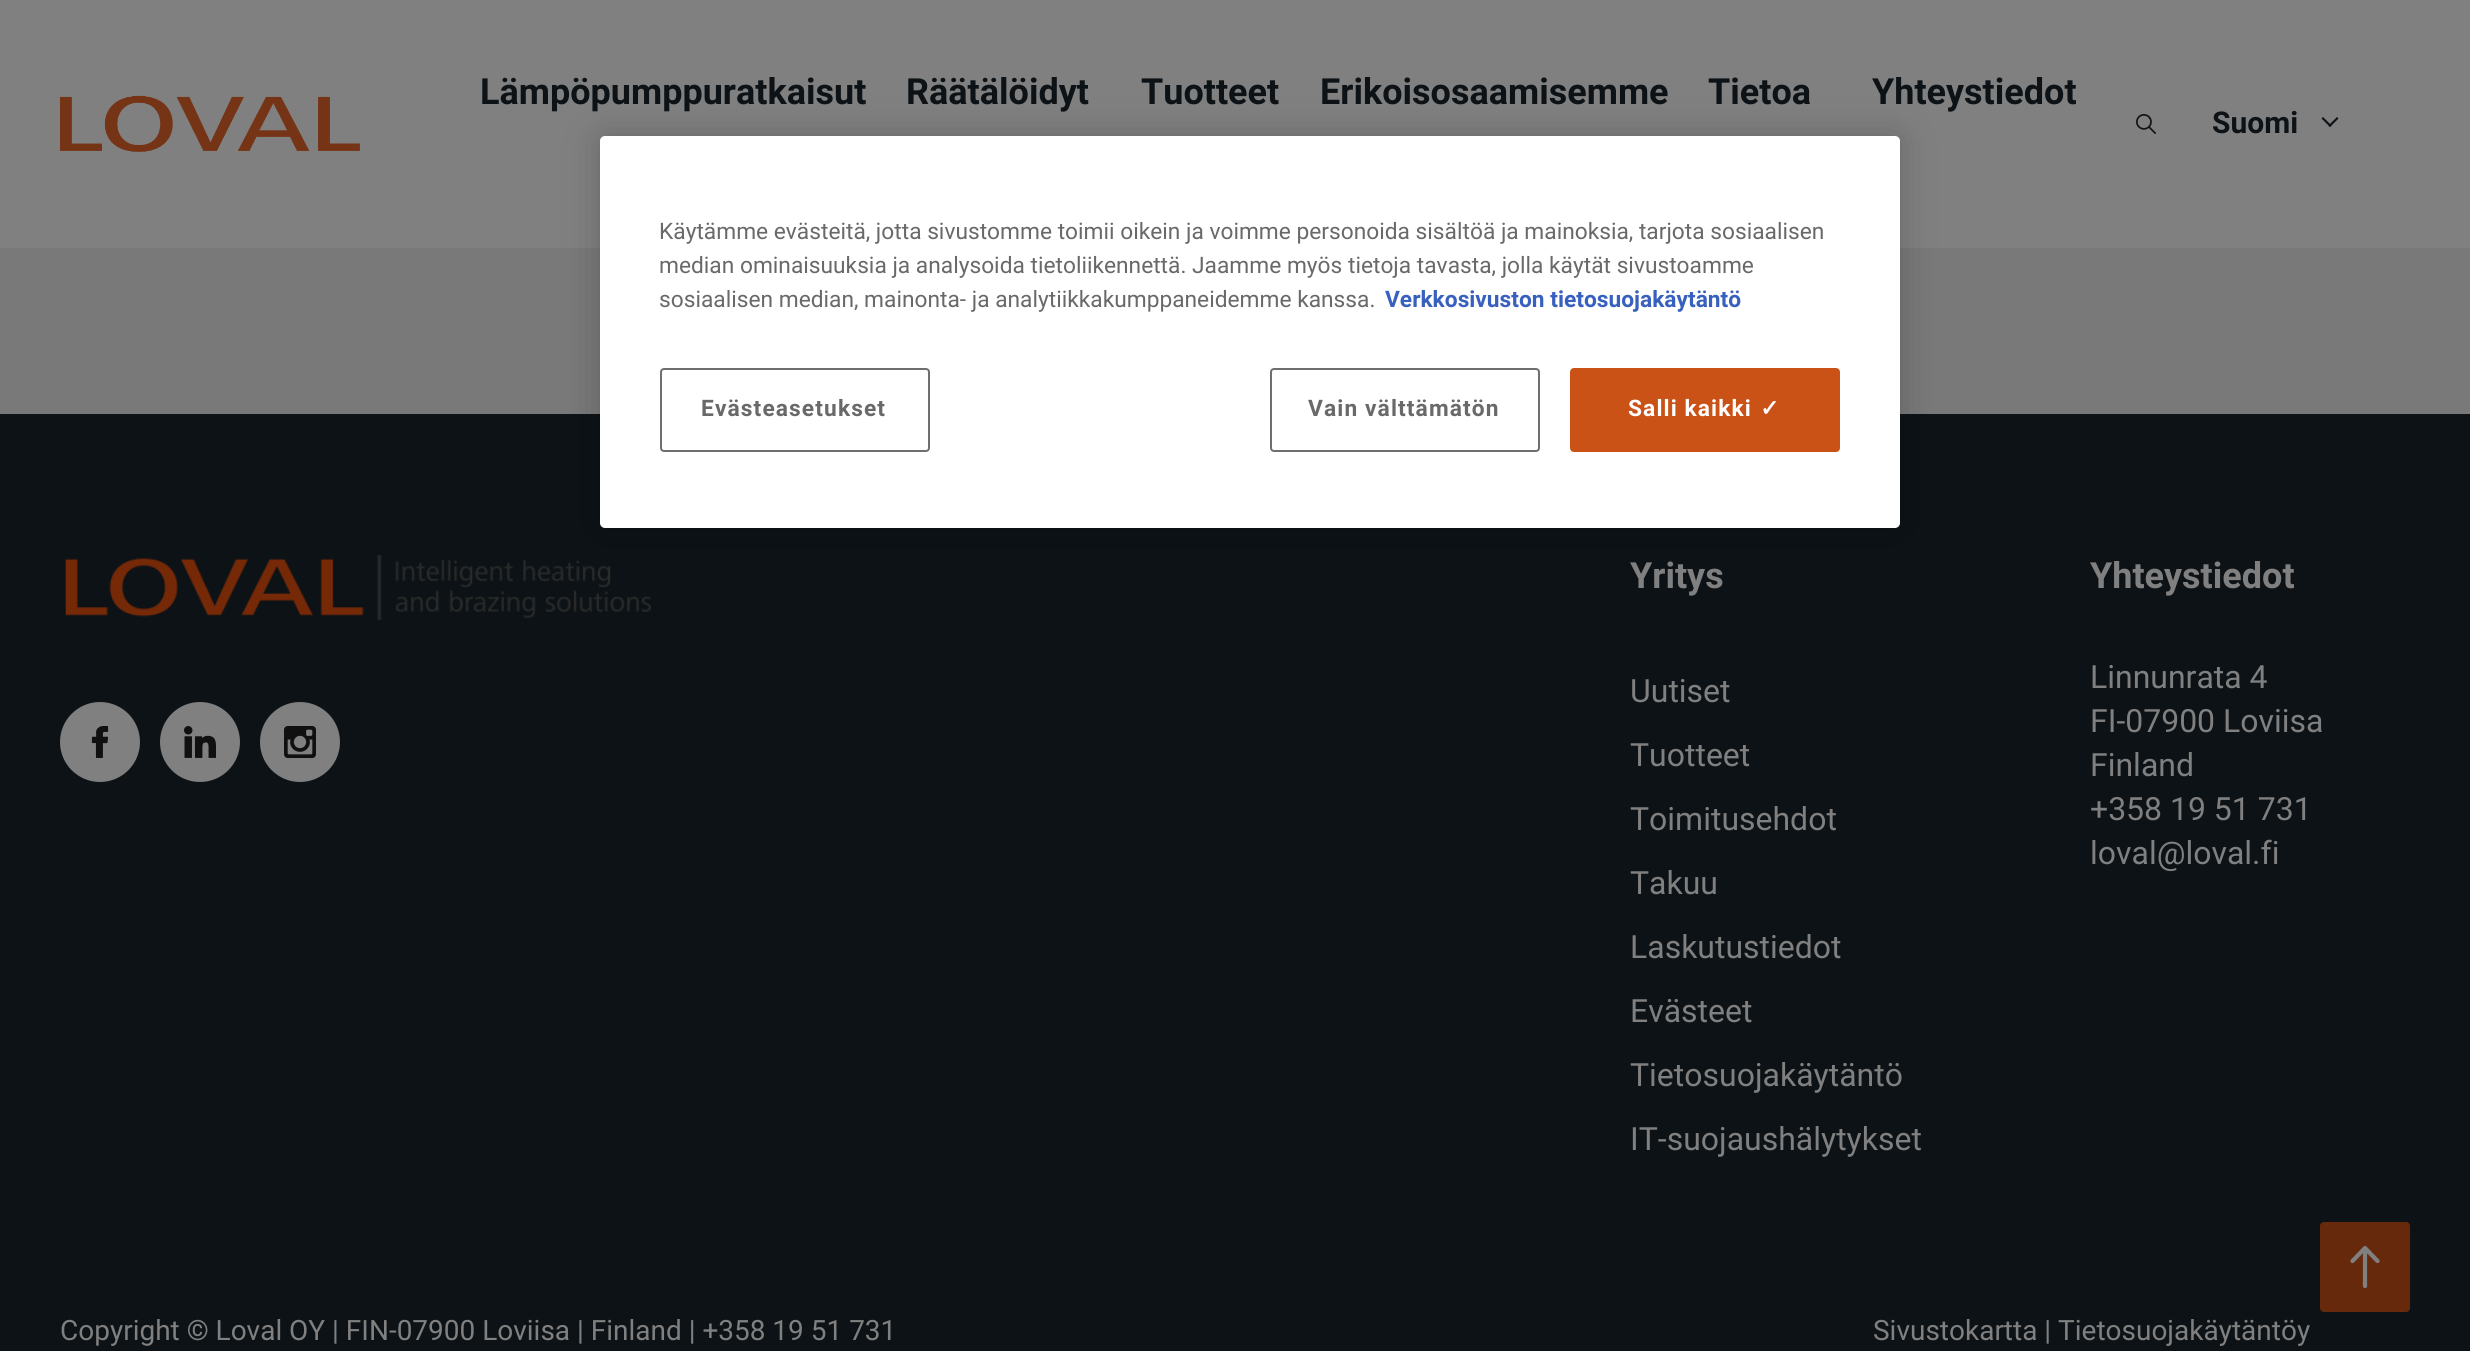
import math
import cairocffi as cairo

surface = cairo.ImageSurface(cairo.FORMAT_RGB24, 2470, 1351)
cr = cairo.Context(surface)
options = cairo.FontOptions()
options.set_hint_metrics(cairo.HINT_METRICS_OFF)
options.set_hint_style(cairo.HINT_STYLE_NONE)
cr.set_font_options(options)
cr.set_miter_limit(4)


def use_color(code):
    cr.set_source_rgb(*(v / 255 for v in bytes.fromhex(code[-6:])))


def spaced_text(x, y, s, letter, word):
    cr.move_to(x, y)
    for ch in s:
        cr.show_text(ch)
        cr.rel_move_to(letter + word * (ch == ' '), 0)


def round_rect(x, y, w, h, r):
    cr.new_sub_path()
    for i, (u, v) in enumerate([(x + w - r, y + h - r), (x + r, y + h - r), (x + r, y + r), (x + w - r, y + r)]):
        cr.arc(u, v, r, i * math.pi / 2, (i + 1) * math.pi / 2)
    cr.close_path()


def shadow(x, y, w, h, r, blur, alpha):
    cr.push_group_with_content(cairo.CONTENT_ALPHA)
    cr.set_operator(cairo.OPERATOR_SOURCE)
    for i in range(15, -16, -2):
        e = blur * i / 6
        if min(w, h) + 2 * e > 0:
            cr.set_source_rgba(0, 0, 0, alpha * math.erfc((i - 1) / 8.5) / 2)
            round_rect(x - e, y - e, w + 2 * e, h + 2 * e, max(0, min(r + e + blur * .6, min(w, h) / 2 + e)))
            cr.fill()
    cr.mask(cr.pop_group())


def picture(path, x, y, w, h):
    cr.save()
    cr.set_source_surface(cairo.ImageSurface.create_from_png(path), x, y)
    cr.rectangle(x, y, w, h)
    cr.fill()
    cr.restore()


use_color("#797979")
cr.paint()
use_color("#808080")
cr.rectangle(0, 0, 2470, 248)
cr.fill()
picture("img1.png", 60, 95, 300, 57)
cr.select_font_face("Roboto", cairo.FONT_SLANT_NORMAL, cairo.FONT_WEIGHT_BOLD)
cr.set_font_size(36)
use_color("#0c1216")
cr.move_to(480, 104)
cr.show_text("Lämpöpumppuratkaisut")
cr.move_to(906, 104)
cr.show_text("Räätälöidyt")
cr.move_to(1141, 104)
cr.show_text("Tuotteet")
cr.move_to(1320, 104)
cr.show_text("Erikoisosaamisemme")
cr.move_to(1708, 104)
cr.show_text("Tietoa")
cr.move_to(1872, 104)
cr.show_text("Yhteystiedot")
picture("img2.png", 2136, 114, 20, 20)
cr.set_font_size(30)
cr.move_to(2212, 133)
cr.show_text("Suomi")
cr.new_path()
cr.move_to(2338.5, 118.5)
cr.line_to(2330, 127)
cr.line_to(2328.5, 125.5)
cr.line_to(2337, 117)
cr.close_path()
cr.fill()
cr.new_path()
cr.move_to(2331.5, 125.5)
cr.line_to(2330, 127)
cr.line_to(2321.5, 118.5)
cr.line_to(2323, 117)
cr.close_path()
cr.fill()
cr.rectangle(0, 414, 2470, 937)
cr.fill()
picture("img3.png", 65, 555, 586, 65)
use_color("#808080")
cr.arc(100, 742, 40, 0, 2 * math.pi)
cr.fill()
picture("img4.png", 91, 726, 18, 32)
cr.arc(200, 742, 40, 0, 2 * math.pi)
cr.fill()
picture("img5.png", 184, 726, 32, 32)
cr.arc(300, 742, 40, 0, 2 * math.pi)
cr.fill()
picture("img6.png", 284, 726, 32, 32)
cr.set_font_size(36)
cr.move_to(1630, 588)
cr.show_text("Yritys")
cr.select_font_face("Roboto")
cr.set_font_size(32)
cr.move_to(1630, 702)
cr.show_text("Uutiset")
cr.move_to(1630, 766)
cr.show_text("Tuotteet")
cr.move_to(1630, 830)
cr.show_text("Toimitusehdot")
cr.move_to(1630, 894)
cr.show_text("Takuu")
cr.move_to(1630, 958)
cr.show_text("Laskutustiedot")
cr.move_to(1630, 1022)
cr.show_text("Evästeet")
cr.move_to(1630, 1086)
cr.show_text("Tietosuojakäytäntö")
cr.move_to(1630, 1150)
cr.show_text("IT-suojaushälytykset")
cr.select_font_face("Roboto", cairo.FONT_SLANT_NORMAL, cairo.FONT_WEIGHT_BOLD)
cr.set_font_size(36)
cr.move_to(2090, 588)
cr.show_text("Yhteystiedot")
cr.select_font_face("Roboto")
cr.set_font_size(32)
cr.move_to(2090, 688)
cr.show_text("Linnunrata 4")
cr.move_to(2090, 732)
cr.show_text("FI-07900 Loviisa")
cr.move_to(2090, 776)
cr.show_text("Finland")
cr.move_to(2090, 820)
cr.show_text("+358 19 51 731")
cr.move_to(2090, 864)
cr.show_text("loval@loval.fi")
cr.set_font_size(28)
cr.move_to(60, 1340)
cr.show_text("Copyright © Loval OY | FIN-07900 Loviisa | Finland | +358 19 51 731")
cr.move_to(1873, 1340)
cr.show_text("Sivustokartta | Tietosuojakäytäntöy")
use_color("#66290b")
round_rect(2320, 1222, 90, 90, 4)
cr.fill()
cr.new_path()
cr.move_to(2365, 1248)
cr.line_to(2365, 1286)
cr.move_to(2352.5, 1261)
cr.line_to(2365, 1248)
cr.line_to(2377.5, 1261)
use_color("#808080")
cr.set_line_width(4.2)
cr.set_line_cap(cairo.LINE_CAP_ROUND)
cr.set_line_join(cairo.LINE_JOIN_ROUND)
cr.stroke()
use_color("#000000")
shadow(600, 136, 1300, 392, 5, 18, 0.2)
use_color("#ffffff")
round_rect(600, 136, 1300, 392, 5)
cr.fill()
cr.set_font_size(22.75)
use_color("#696969")
cr.move_to(659, 239)
cr.show_text("Käytämme evästeitä, jotta sivustomme toimii oikein ja voimme personoida sisältöä ja mainoksia, tarjota sosiaalisen")
cr.move_to(659, 273)
cr.show_text("median ominaisuuksia ja analysoida tietoliikennettä. Jaamme myös tietoja tavasta, jolla käytät sivustoamme")
cr.move_to(659, 307)
cr.show_text("sosiaalisen median, mainonta- ja analytiikkakumppaneidemme kanssa.")
cr.select_font_face("Roboto", cairo.FONT_SLANT_NORMAL, cairo.FONT_WEIGHT_BOLD)
use_color("#3860be")
cr.move_to(1385, 307)
cr.show_text("Verkkosivuston tietosuojakäytäntö")
round_rect(661, 369, 268, 82, 3)
use_color("#6e6e6e")
cr.set_line_width(2)
cr.set_line_cap(cairo.LINE_CAP_BUTT)
cr.set_line_join(cairo.LINE_JOIN_MITER)
cr.stroke()
use_color("#696969")
spaced_text(701, 416, "Evästeasetukset", 1.1, 0)
round_rect(1271, 369, 268, 82, 3)
use_color("#6e6e6e")
cr.stroke()
use_color("#696969")
spaced_text(1308, 416, "Vain välttämätön", 1.1, 0)
use_color("#cb5216")
round_rect(1571, 369, 268, 82, 3)
cr.fill_preserve()
cr.stroke()
use_color("#ffffff")
spaced_text(1628, 416, "Salli kaikki", 1.1, 0)
cr.select_font_face("DejaVu Sans", cairo.FONT_SLANT_NORMAL, cairo.FONT_WEIGHT_BOLD)
spaced_text(1760, 416, "✓", 1.1, 0)
surface.write_to_png("result.png")
